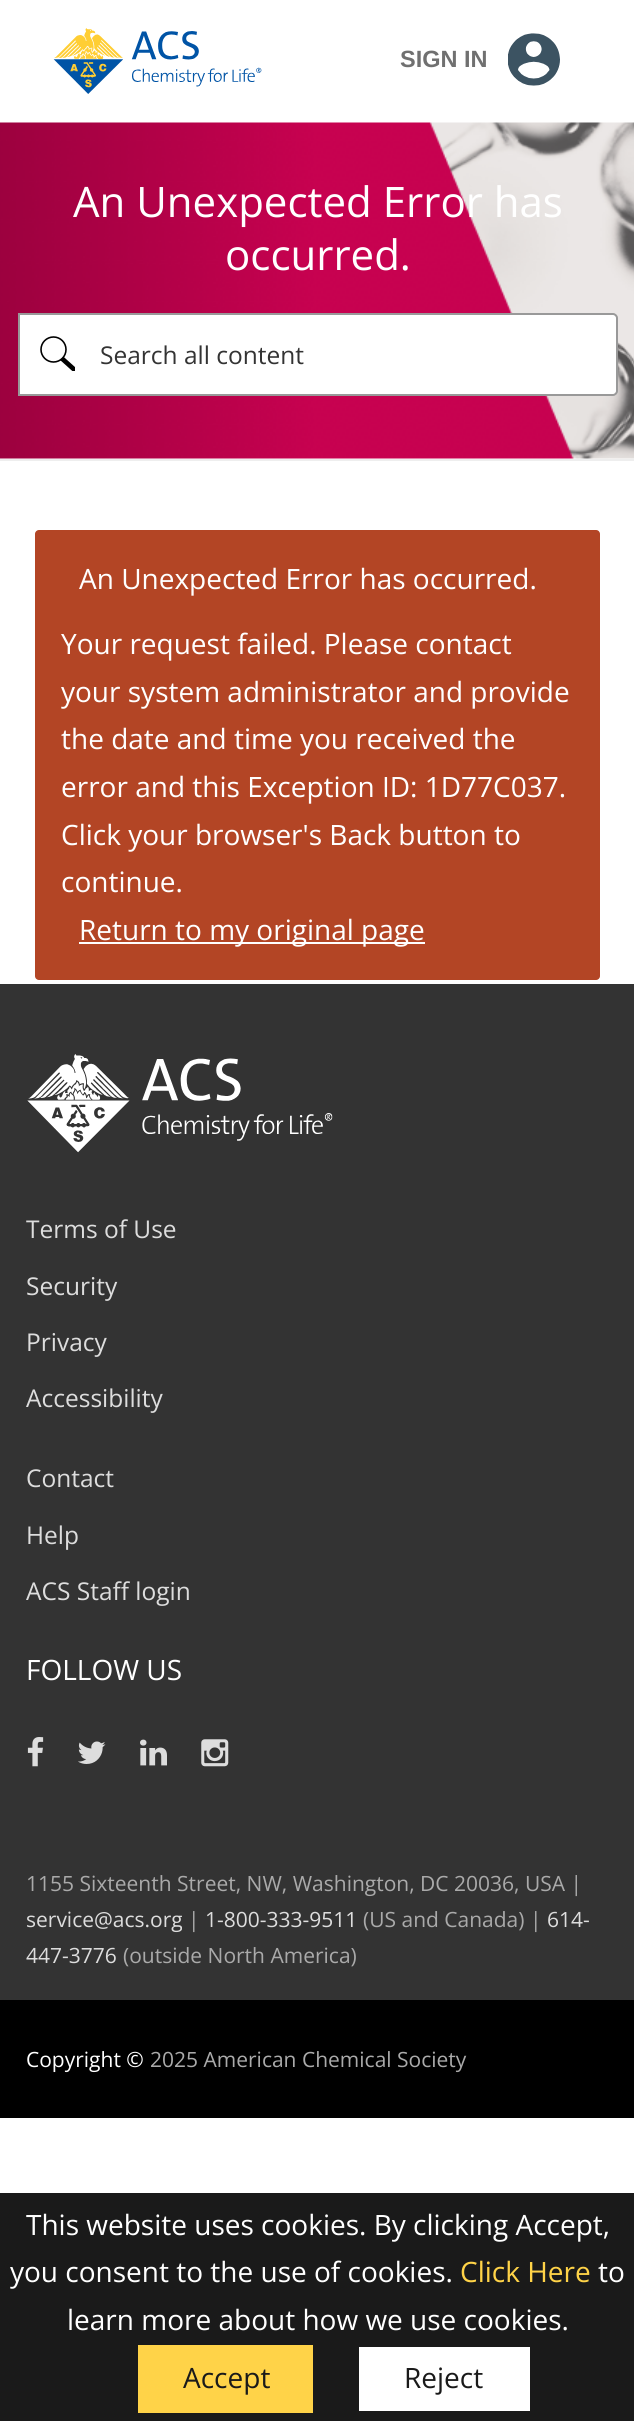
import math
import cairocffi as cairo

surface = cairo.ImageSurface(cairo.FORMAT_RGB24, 634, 2421)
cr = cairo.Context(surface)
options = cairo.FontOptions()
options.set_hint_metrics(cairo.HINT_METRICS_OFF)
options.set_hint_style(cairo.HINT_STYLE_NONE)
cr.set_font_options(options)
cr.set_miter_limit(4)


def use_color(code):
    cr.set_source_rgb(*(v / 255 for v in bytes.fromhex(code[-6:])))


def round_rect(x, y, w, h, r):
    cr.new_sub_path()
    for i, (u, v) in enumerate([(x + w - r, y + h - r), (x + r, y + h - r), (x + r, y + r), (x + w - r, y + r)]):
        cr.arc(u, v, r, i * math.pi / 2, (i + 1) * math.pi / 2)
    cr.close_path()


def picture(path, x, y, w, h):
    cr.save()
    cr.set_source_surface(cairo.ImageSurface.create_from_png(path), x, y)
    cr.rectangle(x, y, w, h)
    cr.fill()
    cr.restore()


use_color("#ffffff")
cr.paint()
picture("img1.png", 53, 28, 209, 66)
cr.select_font_face("Liberation Sans", cairo.FONT_SLANT_NORMAL, cairo.FONT_WEIGHT_BOLD)
cr.set_font_size(23.5)
use_color("#707070")
cr.move_to(400, 67)
cr.show_text("SIGN IN")
picture("img2.png", 508, 33, 52, 53)
picture("img3.png", 0, 122, 634, 337)
cr.select_font_face("Open Sans")
cr.set_font_size(42)
use_color("#ffffff")
cr.move_to(73, 217)
cr.show_text("An Unexpected Error has")
cr.move_to(225, 270)
cr.show_text("occurred.")
cr.new_path()
cr.move_to(19, 314)
cr.line_to(613, 314)
cr.curve_to(615, 314, 617, 316, 617, 318)
cr.line_to(617, 391)
cr.curve_to(617, 393, 615, 395, 613, 395)
cr.line_to(19, 395)
cr.close_path()
cr.fill_preserve()
use_color("#999999")
cr.stroke()
picture("img4.png", 40, 336, 35, 35)
cr.set_font_size(24.5)
use_color("#333333")
cr.move_to(100, 364)
cr.show_text("Search all content")
use_color("#eeeeee")
cr.rectangle(0, 459, 634, 2)
cr.fill()
use_color("#b34525")
round_rect(35, 530, 565, 450, 4)
cr.fill()
cr.set_font_size(28)
use_color("#ffffff")
cr.move_to(79, 589)
cr.show_text("An Unexpected Error has occurred.")
cr.move_to(61, 654)
cr.show_text("Your request failed. Please contact")
cr.move_to(61, 702)
cr.show_text("your system administrator and provide")
cr.move_to(61, 749)
cr.show_text("the date and time you received the")
cr.move_to(61, 797)
cr.show_text("error and this Exception ID: 1D77C037.")
cr.move_to(61, 845)
cr.show_text("Click your browser's Back button to")
cr.move_to(61, 892)
cr.show_text("continue.")
cr.rectangle(79, 942, 346, 2)
cr.fill()
cr.move_to(79, 940)
cr.show_text("Return to my original page")
use_color("#1a1a1a")
cr.rectangle(0, 2193, 634, 228)
cr.fill()
use_color("#ffffff")
cr.move_to(26, 2235)
cr.show_text("This website uses cookies. By clicking Accept,")
cr.move_to(10, 2282)
cr.show_text("you consent to the use of cookies.")
use_color("#ffd348")
cr.move_to(460, 2282)
cr.show_text("Click Here")
use_color("#ffffff")
cr.move_to(598, 2282)
cr.show_text("to")
cr.move_to(67, 2330)
cr.show_text("learn more about how we use cookies.")
use_color("#ffd348")
cr.rectangle(138, 2345, 175, 68)
cr.fill()
use_color("#1a1a1a")
cr.move_to(183, 2388)
cr.show_text("Accept")
use_color("#ffffff")
cr.rectangle(359, 2347, 171, 64)
cr.fill()
use_color("#1a1a1a")
cr.move_to(404, 2388)
cr.show_text("Reject")
use_color("#333333")
cr.rectangle(0, 984, 634, 1016)
cr.fill()
picture("img5.png", 27, 1054, 306, 99)
cr.set_font_size(24.5)
use_color("#dddddd")
cr.move_to(26, 1238)
cr.show_text("Terms of Use")
cr.move_to(26, 1295)
cr.show_text("Security")
cr.move_to(26, 1351)
cr.show_text("Privacy")
cr.move_to(26, 1407)
cr.show_text("Accessibility")
cr.move_to(26, 1487)
cr.show_text("Contact")
cr.move_to(26, 1544)
cr.show_text("Help")
cr.move_to(26, 1600)
cr.show_text("ACS Staff login")
cr.set_font_size(28)
use_color("#ffffff")
cr.move_to(26, 1680)
cr.show_text("FOLLOW US")
picture("img6.png", 27, 1737, 17, 30)
picture("img7.png", 78, 1741, 28, 23)
picture("img8.png", 140, 1739, 27, 27)
picture("img9.png", 201, 1739, 28, 28)
cr.set_font_size(21)
use_color("#aaaaaa")
cr.move_to(26, 1891)
cr.show_text("1155 Sixteenth Street, NW, Washington, DC 20036, USA |")
use_color("#dddddd")
cr.move_to(26, 1927)
cr.show_text("service@acs.org")
use_color("#aaaaaa")
cr.move_to(188, 1927)
cr.show_text("|")
use_color("#dddddd")
cr.move_to(205, 1927)
cr.show_text("1-800-333-9511")
use_color("#aaaaaa")
cr.move_to(363, 1927)
cr.show_text("(US and Canada) |")
use_color("#dddddd")
cr.move_to(547, 1927)
cr.show_text("614-")
cr.move_to(26, 1963)
cr.show_text("447-3776")
use_color("#aaaaaa")
cr.move_to(123, 1963)
cr.show_text("(outside North America)")
use_color("#000000")
cr.rectangle(0, 2000, 634, 118)
cr.fill()
use_color("#ffffff")
cr.move_to(26, 2067)
cr.show_text("Copyright ©")
use_color("#aaaaaa")
cr.move_to(150, 2067)
cr.show_text("2025 American Chemical Society")
surface.write_to_png("result.png")
